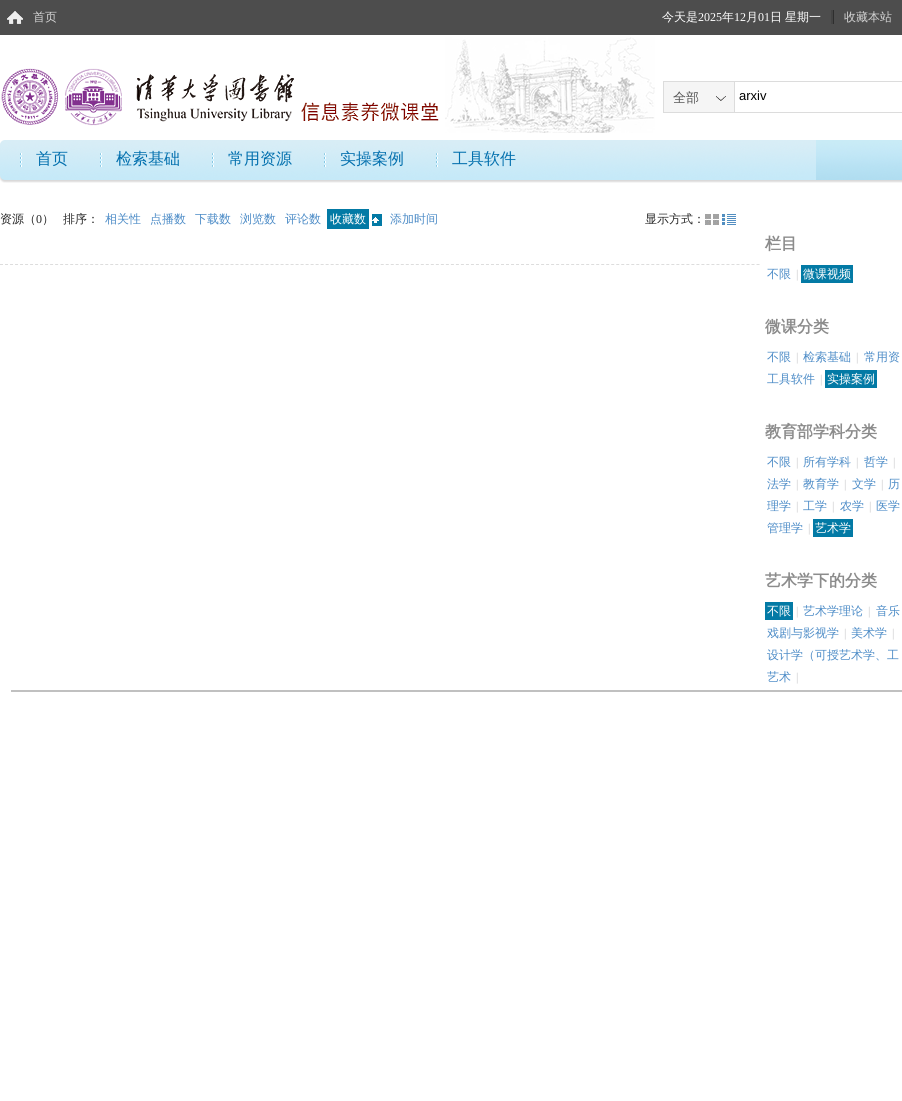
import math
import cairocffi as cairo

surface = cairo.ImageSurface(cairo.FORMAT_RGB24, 902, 1101)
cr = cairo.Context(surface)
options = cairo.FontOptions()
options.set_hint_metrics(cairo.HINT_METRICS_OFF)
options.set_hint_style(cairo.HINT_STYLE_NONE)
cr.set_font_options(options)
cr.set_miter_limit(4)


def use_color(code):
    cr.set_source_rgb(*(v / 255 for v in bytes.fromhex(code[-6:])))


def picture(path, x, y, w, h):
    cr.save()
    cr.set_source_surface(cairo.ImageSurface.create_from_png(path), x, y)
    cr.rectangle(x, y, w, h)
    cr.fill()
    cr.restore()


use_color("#ffffff")
cr.paint()
use_color("#4d4d4d")
cr.rectangle(0, 0, 902, 35)
cr.fill()
picture("img1.png", 7, 11, 16, 13)
cr.select_font_face("WenQuanYi Zen Hei Medium")
cr.set_font_size(12)
use_color("#d3d3d3")
cr.move_to(33, 21)
cr.show_text("首页")
use_color("#ffffff")
cr.move_to(662, 21)
cr.show_text("今天是")
cr.select_font_face("Liberation Serif")
cr.move_to(698, 21)
cr.show_text("2025")
cr.select_font_face("WenQuanYi Zen Hei Medium")
cr.move_to(722, 21)
cr.show_text("年")
cr.select_font_face("Liberation Serif")
cr.move_to(734, 21)
cr.show_text("12")
cr.select_font_face("WenQuanYi Zen Hei Medium")
cr.move_to(746, 21)
cr.show_text("月")
cr.select_font_face("Liberation Serif")
cr.move_to(758, 21)
cr.show_text("01")
cr.select_font_face("WenQuanYi Zen Hei Medium")
cr.move_to(770, 21)
cr.show_text("日")
cr.move_to(785, 21)
cr.show_text("星期一")
use_color("#444444")
cr.rectangle(831, 10, 2, 14)
cr.fill()
use_color("#d3d3d3")
cr.move_to(844, 21)
cr.show_text("收藏本站")
use_color("#2e2e2e")
cr.rectangle(833, 10, 1, 14)
cr.fill()
picture("img2.png", 1, 68, 438, 58)
picture("img3.png", 445, 37, 210, 96)
cr.rectangle(663.5, 81.5, 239, 31)
use_color("#dcdcdc")
cr.set_line_width(1)
cr.stroke()
use_color("#f5f5f5")
cr.rectangle(664, 82, 70, 30)
cr.fill()
picture("img4.png", 716, 96, 10, 5)
use_color("#dcdcdc")
cr.rectangle(734, 82, 1, 30)
cr.fill()
cr.set_font_size(13)
use_color("#555555")
cr.move_to(673, 102)
cr.show_text("全部")
cr.select_font_face("Liberation Sans")
use_color("#000000")
cr.move_to(739, 100)
cr.show_text("arxiv")
picture("img5.png", 0, 140, 902, 43)
picture("img6.png", 20, 153, 2, 14)
cr.select_font_face("WenQuanYi Zen Hei Medium")
cr.set_font_size(16)
use_color("#0370ae")
cr.move_to(36, 164)
cr.show_text("首页")
picture("img7.png", 100, 153, 2, 14)
cr.move_to(116, 164)
cr.show_text("检索基础")
picture("img7.png", 212, 153, 2, 14)
cr.move_to(228, 164)
cr.show_text("常用资源")
picture("img6.png", 324, 153, 2, 14)
cr.move_to(340, 164)
cr.show_text("实操案例")
picture("img6.png", 436, 153, 2, 14)
cr.move_to(452, 164)
cr.show_text("工具软件")
cr.set_font_size(12)
use_color("#252525")
cr.move_to(0, 223)
cr.show_text("资源（")
cr.select_font_face("Liberation Serif")
cr.move_to(36, 223)
cr.show_text("0")
cr.select_font_face("WenQuanYi Zen Hei Medium")
cr.move_to(42, 223)
cr.show_text("）")
cr.move_to(63, 223)
cr.show_text("排序：")
use_color("#4d8cc7")
cr.move_to(105, 223)
cr.show_text("相关性")
cr.move_to(150, 223)
cr.show_text("点播数")
cr.move_to(195, 223)
cr.show_text("下载数")
cr.move_to(240, 223)
cr.show_text("浏览数")
cr.move_to(285, 223)
cr.show_text("评论数")
use_color("#037aa5")
cr.rectangle(327, 209, 42, 20)
cr.fill()
cr.rectangle(372, 214, 10, 12)
cr.fill()
use_color("#ffffff")
cr.move_to(330, 223)
cr.show_text("收藏数")
picture("img8.png", 372, 217, 7, 6)
use_color("#4d8cc7")
cr.move_to(390, 223)
cr.show_text("添加时间")
use_color("#252525")
cr.move_to(645, 223)
cr.show_text("显示方式：")
picture("img9.png", 705, 214, 14, 11)
picture("img10.png", 722, 214, 14, 11)
cr.new_path()
cr.move_to(0, 264.5)
cr.line_to(760, 264.5)
use_color("#dddddd")
cr.set_dash([3, 2.01])
cr.stroke()
cr.select_font_face("WenQuanYi Zen Hei", cairo.FONT_SLANT_NORMAL, cairo.FONT_WEIGHT_BOLD)
cr.set_font_size(16)
use_color("#8c8c8c")
cr.move_to(765, 249)
cr.show_text("栏目")
cr.select_font_face("WenQuanYi Zen Hei Medium")
cr.set_font_size(12)
use_color("#4d8cc7")
cr.move_to(767, 278)
cr.show_text("不限")
cr.select_font_face("Liberation Serif")
use_color("#c9cacb")
cr.move_to(796, 278)
cr.show_text("|")
use_color("#037aa5")
cr.rectangle(801, 265, 52, 18)
cr.fill()
cr.select_font_face("WenQuanYi Zen Hei Medium")
use_color("#ffffff")
cr.move_to(803, 278)
cr.show_text("微课视频")
cr.select_font_face("WenQuanYi Zen Hei", cairo.FONT_SLANT_NORMAL, cairo.FONT_WEIGHT_BOLD)
cr.set_font_size(16)
use_color("#8c8c8c")
cr.move_to(765, 332)
cr.show_text("微课分类")
cr.select_font_face("WenQuanYi Zen Hei Medium")
cr.set_font_size(12)
use_color("#4d8cc7")
cr.move_to(767, 361)
cr.show_text("不限")
cr.select_font_face("Liberation Serif")
use_color("#c9cacb")
cr.move_to(796, 361)
cr.show_text("|")
cr.select_font_face("WenQuanYi Zen Hei Medium")
use_color("#4d8cc7")
cr.move_to(803, 361)
cr.show_text("检索基础")
cr.select_font_face("Liberation Serif")
use_color("#c9cacb")
cr.move_to(856, 361)
cr.show_text("|")
cr.select_font_face("WenQuanYi Zen Hei Medium")
use_color("#4d8cc7")
cr.move_to(864, 361)
cr.show_text("常用资")
cr.move_to(767, 383)
cr.show_text("工具软件")
cr.select_font_face("Liberation Serif")
use_color("#c9cacb")
cr.move_to(820, 383)
cr.show_text("|")
use_color("#037aa5")
cr.rectangle(825, 370, 52, 18)
cr.fill()
cr.select_font_face("WenQuanYi Zen Hei Medium")
use_color("#ffffff")
cr.move_to(827, 383)
cr.show_text("实操案例")
cr.select_font_face("WenQuanYi Zen Hei", cairo.FONT_SLANT_NORMAL, cairo.FONT_WEIGHT_BOLD)
cr.set_font_size(16)
use_color("#8c8c8c")
cr.move_to(765, 437)
cr.show_text("教育部学科分类")
cr.select_font_face("WenQuanYi Zen Hei Medium")
cr.set_font_size(12)
use_color("#4d8cc7")
cr.move_to(767, 466)
cr.show_text("不限")
cr.select_font_face("Liberation Serif")
use_color("#c9cacb")
cr.move_to(796, 466)
cr.show_text("|")
cr.select_font_face("WenQuanYi Zen Hei Medium")
use_color("#4d8cc7")
cr.move_to(803, 466)
cr.show_text("所有学科")
cr.select_font_face("Liberation Serif")
use_color("#c9cacb")
cr.move_to(856, 466)
cr.show_text("|")
cr.select_font_face("WenQuanYi Zen Hei Medium")
use_color("#4d8cc7")
cr.move_to(864, 466)
cr.show_text("哲学")
cr.select_font_face("Liberation Serif")
use_color("#c9cacb")
cr.move_to(893, 466)
cr.show_text("|")
cr.select_font_face("WenQuanYi Zen Hei Medium")
use_color("#4d8cc7")
cr.move_to(767, 488)
cr.show_text("法学")
cr.select_font_face("Liberation Serif")
use_color("#c9cacb")
cr.move_to(796, 488)
cr.show_text("|")
cr.select_font_face("WenQuanYi Zen Hei Medium")
use_color("#4d8cc7")
cr.move_to(803, 488)
cr.show_text("教育学")
cr.select_font_face("Liberation Serif")
use_color("#c9cacb")
cr.move_to(844, 488)
cr.show_text("|")
cr.select_font_face("WenQuanYi Zen Hei Medium")
use_color("#4d8cc7")
cr.move_to(852, 488)
cr.show_text("文学")
cr.select_font_face("Liberation Serif")
use_color("#c9cacb")
cr.move_to(881, 488)
cr.show_text("|")
cr.select_font_face("WenQuanYi Zen Hei Medium")
use_color("#4d8cc7")
cr.move_to(888, 488)
cr.show_text("历")
cr.move_to(767, 510)
cr.show_text("理学")
cr.select_font_face("Liberation Serif")
use_color("#c9cacb")
cr.move_to(796, 510)
cr.show_text("|")
cr.select_font_face("WenQuanYi Zen Hei Medium")
use_color("#4d8cc7")
cr.move_to(803, 510)
cr.show_text("工学")
cr.select_font_face("Liberation Serif")
use_color("#c9cacb")
cr.move_to(832, 510)
cr.show_text("|")
cr.select_font_face("WenQuanYi Zen Hei Medium")
use_color("#4d8cc7")
cr.move_to(840, 510)
cr.show_text("农学")
cr.select_font_face("Liberation Serif")
use_color("#c9cacb")
cr.move_to(869, 510)
cr.show_text("|")
cr.select_font_face("WenQuanYi Zen Hei Medium")
use_color("#4d8cc7")
cr.move_to(876, 510)
cr.show_text("医学")
cr.move_to(767, 532)
cr.show_text("管理学")
cr.select_font_face("Liberation Serif")
use_color("#c9cacb")
cr.move_to(808, 532)
cr.show_text("|")
use_color("#037aa5")
cr.rectangle(813, 519, 40, 18)
cr.fill()
cr.select_font_face("WenQuanYi Zen Hei Medium")
use_color("#ffffff")
cr.move_to(815, 532)
cr.show_text("艺术学")
cr.select_font_face("WenQuanYi Zen Hei", cairo.FONT_SLANT_NORMAL, cairo.FONT_WEIGHT_BOLD)
cr.set_font_size(16)
use_color("#8c8c8c")
cr.move_to(765, 586)
cr.show_text("艺术学下的分类")
use_color("#037aa5")
cr.rectangle(765, 602, 28, 18)
cr.fill()
cr.select_font_face("WenQuanYi Zen Hei Medium")
cr.set_font_size(12)
use_color("#ffffff")
cr.move_to(767, 615)
cr.show_text("不限")
cr.select_font_face("Liberation Serif")
use_color("#c9cacb")
cr.move_to(796, 615)
cr.show_text("|")
cr.select_font_face("WenQuanYi Zen Hei Medium")
use_color("#4d8cc7")
cr.move_to(803, 615)
cr.show_text("艺术学理论")
cr.select_font_face("Liberation Serif")
use_color("#c9cacb")
cr.move_to(868, 615)
cr.show_text("|")
cr.select_font_face("WenQuanYi Zen Hei Medium")
use_color("#4d8cc7")
cr.move_to(876, 615)
cr.show_text("音乐")
cr.move_to(767, 637)
cr.show_text("戏剧与影视学")
cr.select_font_face("Liberation Serif")
use_color("#c9cacb")
cr.move_to(844, 637)
cr.show_text("|")
cr.select_font_face("WenQuanYi Zen Hei Medium")
use_color("#4d8cc7")
cr.move_to(851, 637)
cr.show_text("美术学")
cr.select_font_face("Liberation Serif")
use_color("#c9cacb")
cr.move_to(892, 637)
cr.show_text("|")
cr.select_font_face("WenQuanYi Zen Hei Medium")
use_color("#4d8cc7")
cr.move_to(767, 659)
cr.show_text("设计学（可授艺术学、工")
cr.move_to(767, 681)
cr.show_text("艺术")
cr.select_font_face("Liberation Serif")
use_color("#c9cacb")
cr.move_to(796, 681)
cr.show_text("|")
use_color("#c0c0c0")
cr.rectangle(11, 690, 891, 2)
cr.fill()
surface.write_to_png("result.png")
